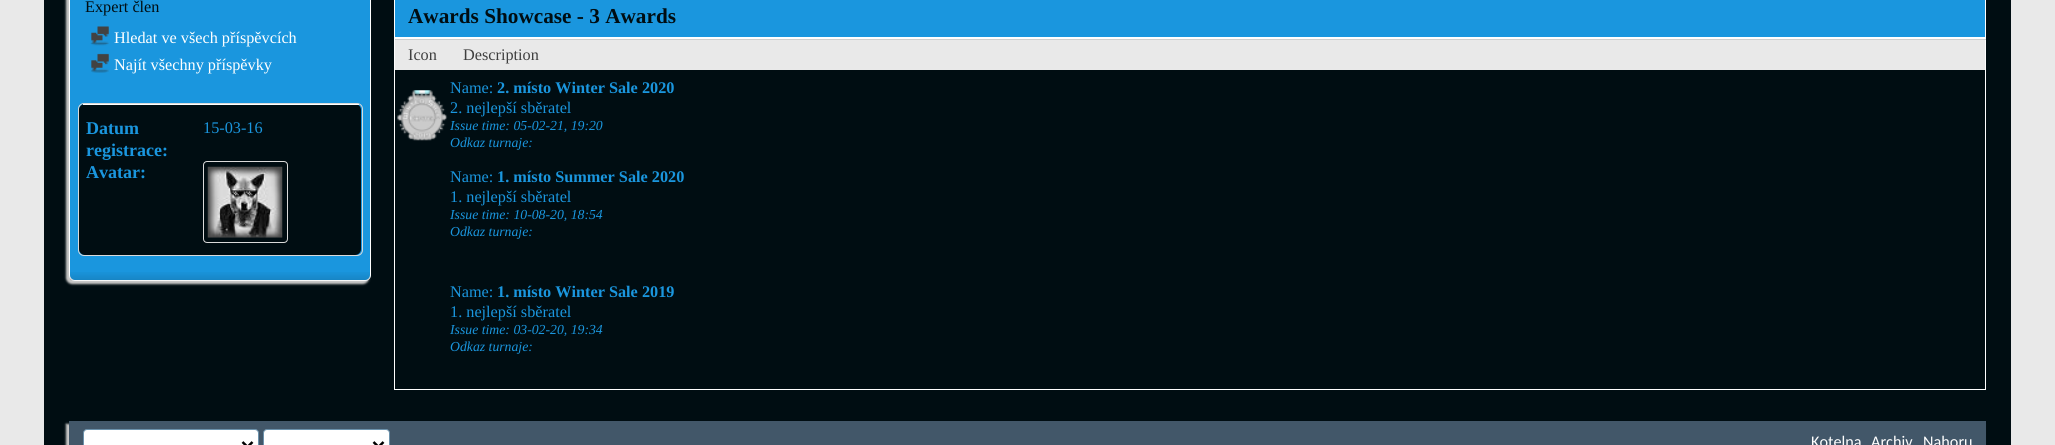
import math
import cairocffi as cairo

surface = cairo.ImageSurface(cairo.FORMAT_RGB24, 2055, 445)
cr = cairo.Context(surface)
options = cairo.FontOptions()
options.set_hint_metrics(cairo.HINT_METRICS_OFF)
options.set_hint_style(cairo.HINT_STYLE_NONE)
cr.set_font_options(options)
cr.set_miter_limit(4)


def use_color(code):
    cr.set_source_rgb(*(v / 255 for v in bytes.fromhex(code[-6:])))


def round_rect(x, y, w, h, r):
    cr.new_sub_path()
    for i, (u, v) in enumerate([(x + w - r, y + h - r), (x + r, y + h - r), (x + r, y + r), (x + w - r, y + r)]):
        cr.arc(u, v, r, i * math.pi / 2, (i + 1) * math.pi / 2)
    cr.close_path()


def shadow(x, y, w, h, r, blur, alpha):
    cr.push_group_with_content(cairo.CONTENT_ALPHA)
    cr.set_operator(cairo.OPERATOR_SOURCE)
    for i in range(15, -16, -2):
        e = blur * i / 6
        if min(w, h) + 2 * e > 0:
            cr.set_source_rgba(0, 0, 0, alpha * math.erfc((i - 1) / 8.5) / 2)
            round_rect(x - e, y - e, w + 2 * e, h + 2 * e, max(0, min(r + e + blur * .6, min(w, h) / 2 + e)))
            cr.fill()
    cr.mask(cr.pop_group())


def picture(path, x, y, w, h):
    cr.save()
    cr.set_source_surface(cairo.ImageSurface.create_from_png(path), x, y)
    cr.rectangle(x, y, w, h)
    cr.fill()
    cr.restore()


use_color("#e9e9e9")
cr.paint()
use_color("#000d12")
cr.rectangle(44, 0, 1967, 445)
cr.fill()
use_color("#c8c8c8")
shadow(66, -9, 303, 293, 6, 1, 1)
use_color("#1a96de")
round_rect(69.5, -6.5, 301, 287, 5.5)
cr.fill_preserve()
use_color("#ffffff")
cr.set_line_width(1)
cr.stroke()
cr.select_font_face("Liberation Serif")
cr.set_font_size(16.25)
use_color("#000d12")
cr.move_to(85, 12)
cr.show_text("Expert člen")
picture("img1.png", 90, 26, 19, 20)
use_color("#ffffff")
cr.move_to(114, 43)
cr.show_text("Hledat ve všech příspěvcích")
picture("img2.png", 91, 53, 18, 20)
cr.move_to(114, 70)
cr.show_text("Najít všechny příspěvky")
round_rect(78.5, 103.5, 284, 152, 5.5)
use_color("#dadada")
cr.stroke()
use_color("#000d12")
round_rect(79, 104, 282, 151, 6)
cr.fill()
use_color("#ffffff")
cr.rectangle(83, 104, 276, 1)
cr.fill()
cr.select_font_face("Liberation Serif", cairo.FONT_SLANT_NORMAL, cairo.FONT_WEIGHT_BOLD)
cr.set_font_size(18)
use_color("#1a96de")
cr.move_to(86, 134)
cr.show_text("Datum")
cr.move_to(86, 156)
cr.show_text("registrace:")
cr.select_font_face("Liberation Serif")
cr.set_font_size(16.25)
cr.move_to(203, 133)
cr.show_text("15-03-16")
cr.select_font_face("Liberation Serif", cairo.FONT_SLANT_NORMAL, cairo.FONT_WEIGHT_BOLD)
cr.set_font_size(18)
cr.move_to(86, 178)
cr.show_text("Avatar:")
round_rect(203.5, 161.5, 84, 81, 3.5)
use_color("#dadada")
cr.stroke()
picture("img3.png", 207, 166, 76, 72)
picture("img4.png", 70, 272, 300, 9)
use_color("#1a96de")
cr.rectangle(394.5, -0.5, 1591, 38)
cr.fill_preserve()
use_color("#ffffff")
cr.stroke()
cr.set_font_size(21.25)
use_color("#000d12")
cr.move_to(408, 23)
cr.show_text("Awards Showcase - 3 Awards")
cr.rectangle(394.5, 38.5, 1591, 351)
use_color("#ffffff")
cr.stroke()
use_color("#e9e9e9")
cr.rectangle(395, 40, 1590, 30)
cr.fill()
cr.select_font_face("Liberation Serif")
cr.set_font_size(16.25)
use_color("#3e3e3e")
cr.move_to(408, 60)
cr.show_text("Icon")
use_color("#cecece")
cr.rectangle(395, 39, 1591, 1)
cr.fill()
use_color("#3e3e3e")
cr.move_to(463, 60)
cr.show_text("Description")
picture("img5.png", 397, 90, 51, 51)
use_color("#1a96de")
cr.move_to(450, 93)
cr.show_text("Name:")
cr.select_font_face("Liberation Serif", cairo.FONT_SLANT_NORMAL, cairo.FONT_WEIGHT_BOLD)
cr.move_to(497, 93)
cr.show_text("2. místo Winter Sale 2020")
cr.select_font_face("Liberation Serif")
cr.move_to(450, 113)
cr.show_text("2. nejlepší sběratel")
cr.select_font_face("Liberation Serif", cairo.FONT_SLANT_ITALIC)
cr.set_font_size(13.75)
cr.move_to(450, 130)
cr.show_text("Issue time: 05-02-21, 19:20")
cr.move_to(450, 147)
cr.show_text("Odkaz turnaje:")
cr.select_font_face("Liberation Serif")
cr.set_font_size(16.25)
cr.move_to(450, 182)
cr.show_text("Name:")
cr.select_font_face("Liberation Serif", cairo.FONT_SLANT_NORMAL, cairo.FONT_WEIGHT_BOLD)
cr.move_to(497, 182)
cr.show_text("1. místo Summer Sale 2020")
cr.select_font_face("Liberation Serif")
cr.move_to(450, 202)
cr.show_text("1. nejlepší sběratel")
cr.select_font_face("Liberation Serif", cairo.FONT_SLANT_ITALIC)
cr.set_font_size(13.75)
cr.move_to(450, 219)
cr.show_text("Issue time: 10-08-20, 18:54")
cr.move_to(450, 236)
cr.show_text("Odkaz turnaje:")
cr.select_font_face("Liberation Serif")
cr.set_font_size(16.25)
cr.move_to(450, 297)
cr.show_text("Name:")
cr.select_font_face("Liberation Serif", cairo.FONT_SLANT_NORMAL, cairo.FONT_WEIGHT_BOLD)
cr.move_to(497, 297)
cr.show_text("1. místo Winter Sale 2019")
cr.select_font_face("Liberation Serif")
cr.move_to(450, 317)
cr.show_text("1. nejlepší sběratel")
cr.select_font_face("Liberation Serif", cairo.FONT_SLANT_ITALIC)
cr.set_font_size(13.75)
cr.move_to(450, 334)
cr.show_text("Issue time: 03-02-20, 19:34")
cr.move_to(450, 351)
cr.show_text("Odkaz turnaje:")
use_color("#c8c8c8")
shadow(66, 424, 1918, 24, 0, 1, 1)
use_color("#425769")
cr.rectangle(69, 421, 1917, 24)
cr.fill()
use_color("#ffffff")
round_rect(83.5, 429.5, 175, 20, 3.5)
cr.fill_preserve()
use_color("#6b91ab")
cr.stroke()
cr.new_path()
cr.move_to(242.5, 442)
cr.line_to(247.5, 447)
cr.line_to(252.5, 442)
use_color("#000000")
cr.set_line_width(2.5)
cr.stroke()
use_color("#ffffff")
round_rect(263.5, 429.5, 126, 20, 3.5)
cr.fill_preserve()
use_color("#6b91ab")
cr.set_line_width(1)
cr.stroke()
cr.new_path()
cr.move_to(373.5, 442)
cr.line_to(378.5, 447)
cr.line_to(383.5, 442)
use_color("#000000")
cr.set_line_width(2.5)
cr.stroke()
cr.select_font_face("Carlito")
cr.set_font_size(16.25)
use_color("#ffffff")
cr.move_to(1811, 447)
cr.show_text("Kotelna")
cr.move_to(1871, 447)
cr.show_text("Archiv")
cr.move_to(1923, 447)
cr.show_text("Nahoru")
surface.write_to_png("result.png")
